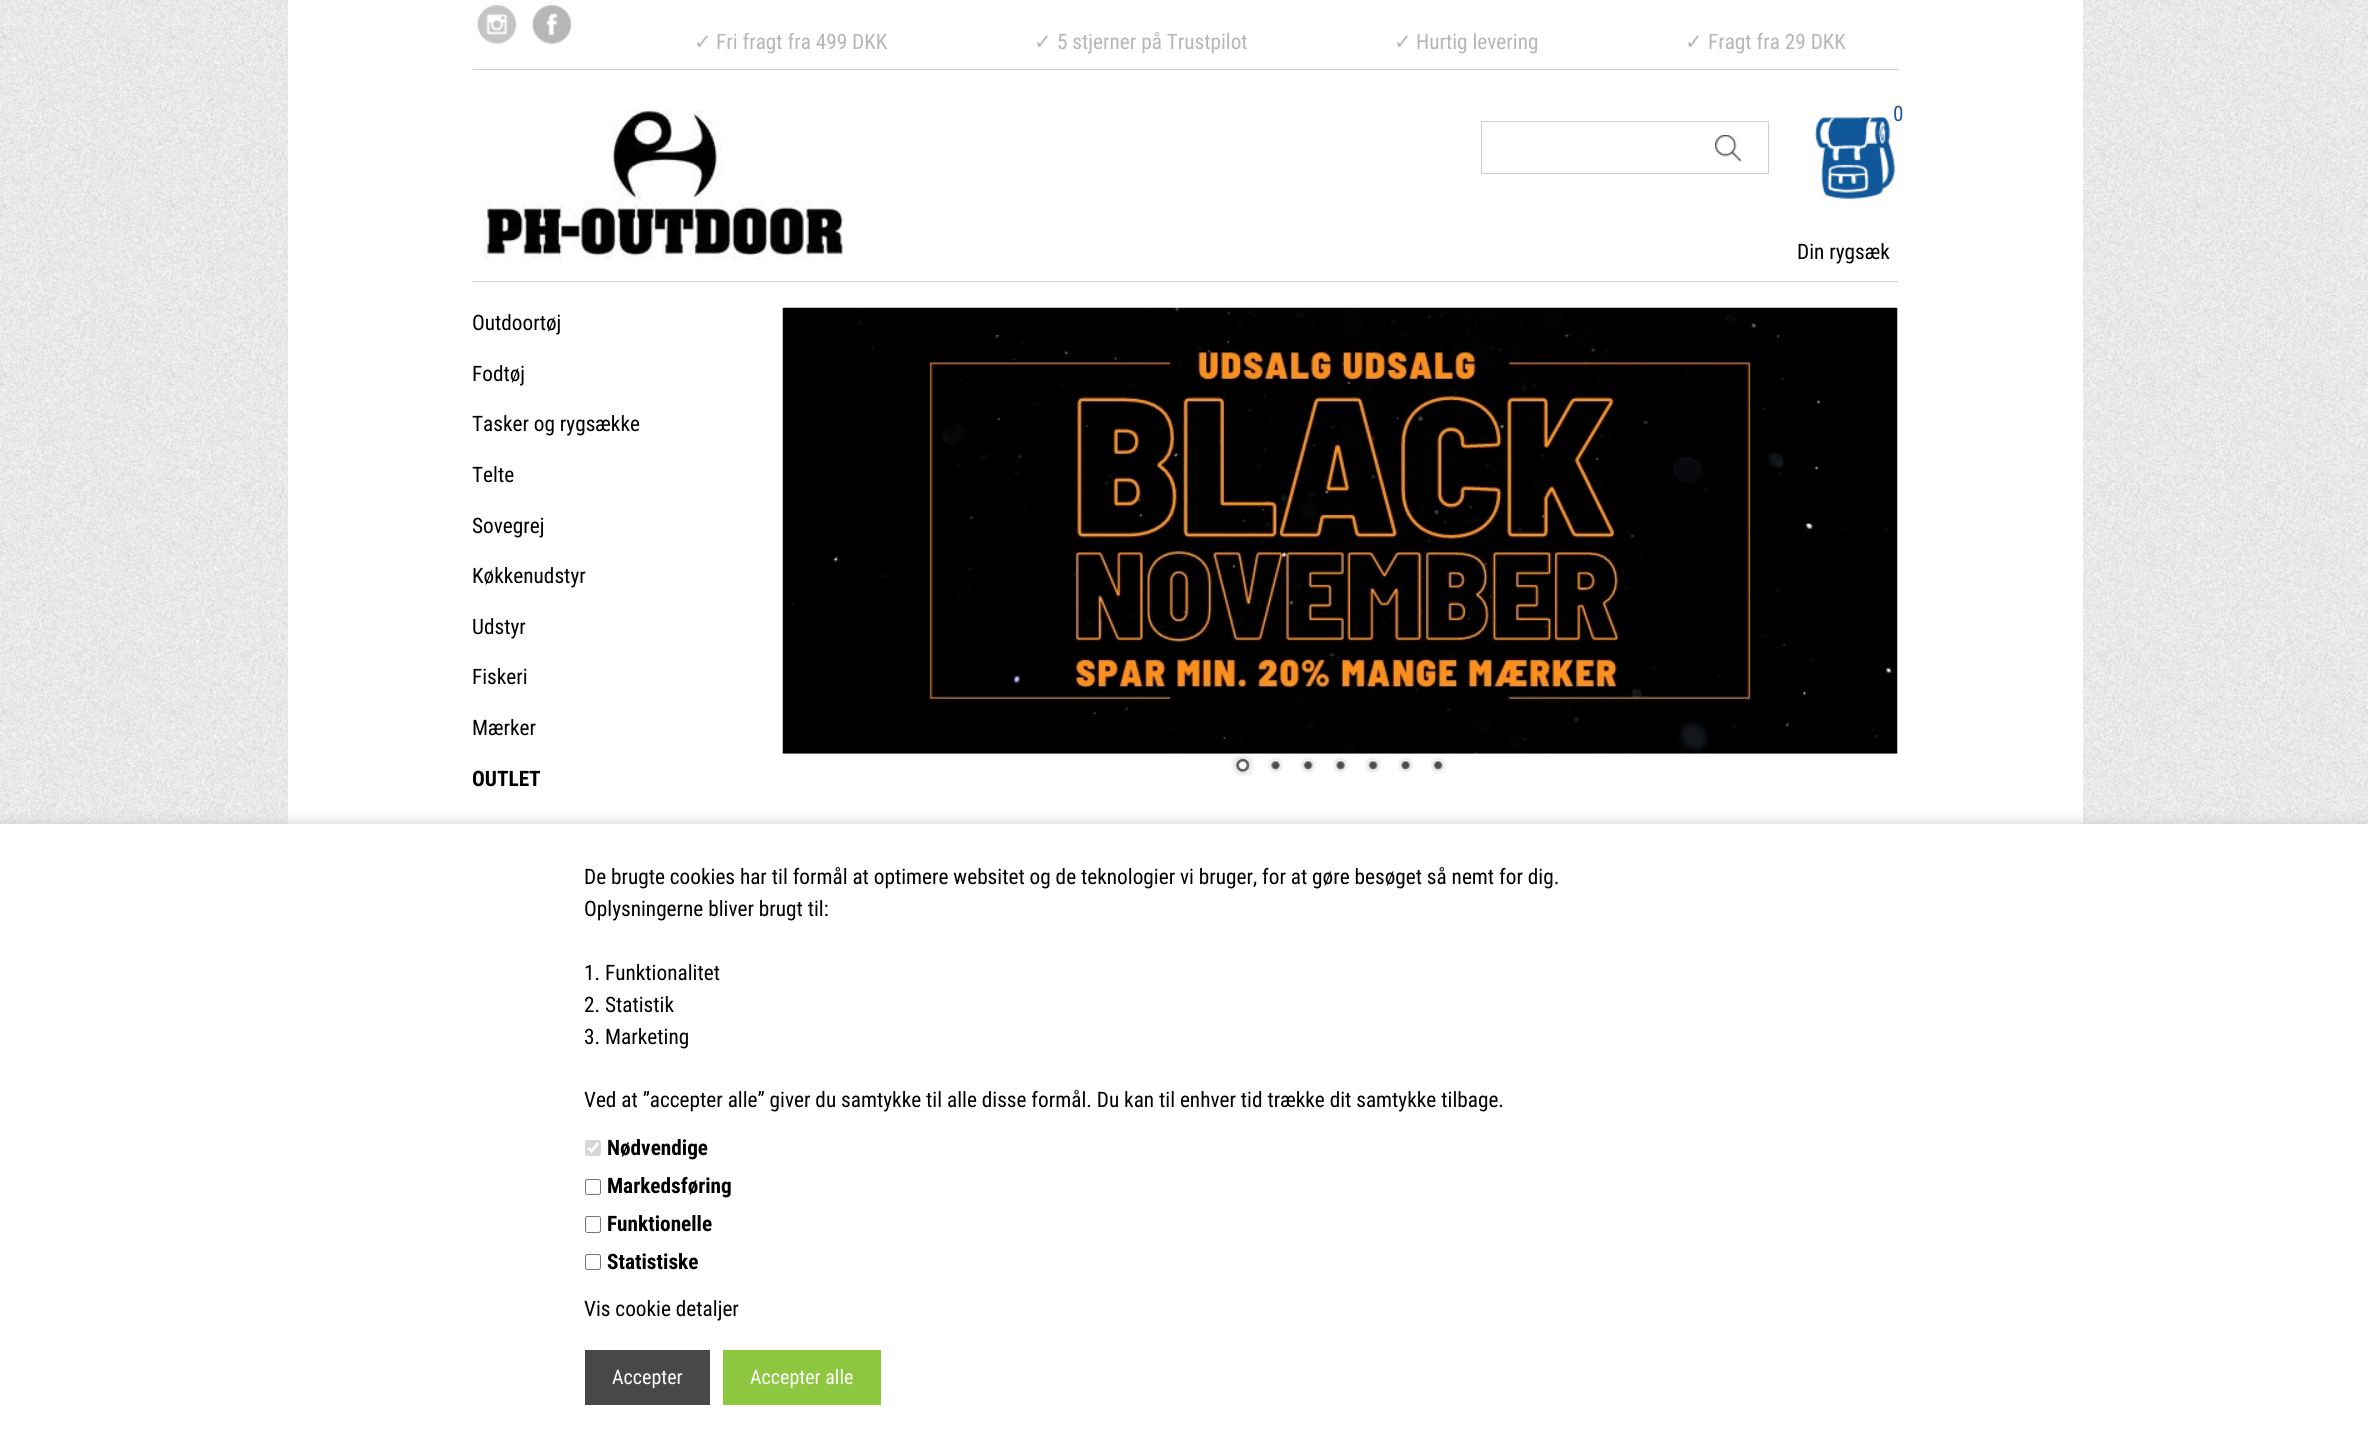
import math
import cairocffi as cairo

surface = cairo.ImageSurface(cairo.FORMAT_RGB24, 2368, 1442)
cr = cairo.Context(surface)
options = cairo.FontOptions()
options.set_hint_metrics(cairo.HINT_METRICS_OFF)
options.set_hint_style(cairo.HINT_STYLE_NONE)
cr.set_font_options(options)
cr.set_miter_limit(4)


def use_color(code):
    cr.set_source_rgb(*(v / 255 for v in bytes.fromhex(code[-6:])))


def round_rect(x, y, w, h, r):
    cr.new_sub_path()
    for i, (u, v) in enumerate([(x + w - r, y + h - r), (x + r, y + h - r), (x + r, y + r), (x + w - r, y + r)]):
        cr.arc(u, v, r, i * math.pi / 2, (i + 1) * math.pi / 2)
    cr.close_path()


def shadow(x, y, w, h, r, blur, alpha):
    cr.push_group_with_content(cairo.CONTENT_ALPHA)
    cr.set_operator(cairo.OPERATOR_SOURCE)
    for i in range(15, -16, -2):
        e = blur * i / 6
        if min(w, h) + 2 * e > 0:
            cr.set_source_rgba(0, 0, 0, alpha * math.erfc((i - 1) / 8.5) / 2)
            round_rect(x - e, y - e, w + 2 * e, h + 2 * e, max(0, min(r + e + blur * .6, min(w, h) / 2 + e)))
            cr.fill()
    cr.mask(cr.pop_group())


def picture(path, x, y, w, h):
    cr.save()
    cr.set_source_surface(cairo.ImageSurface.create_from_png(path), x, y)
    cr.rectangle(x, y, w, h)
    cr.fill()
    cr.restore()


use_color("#ffffff")
cr.paint()
picture("img1.png", 0, 0, 2368, 824)
use_color("#ffffff")
cr.rectangle(288, 0, 1795, 824)
cr.fill()
use_color("#cfcfcf")
cr.rectangle(473, 281, 1425, 1)
cr.fill()
picture("img2.png", 477, 5, 40, 39)
picture("img3.png", 532, 5, 40, 39)
cr.select_font_face("DejaVu Sans")
cr.set_font_size(21.25)
use_color("#b6b6b6")
cr.move_to(694, 49)
cr.show_text("✓")
cr.select_font_face("Roboto Condensed")
cr.move_to(716, 49)
cr.show_text("Fri fragt fra 499 DKK")
cr.select_font_face("DejaVu Sans")
cr.move_to(1034, 49)
cr.show_text("✓")
cr.select_font_face("Roboto Condensed")
cr.move_to(1057, 49)
cr.show_text("5 stjerner på Trustpilot")
cr.select_font_face("DejaVu Sans")
cr.move_to(1394, 49)
cr.show_text("✓")
cr.select_font_face("Roboto Condensed")
cr.move_to(1416, 49)
cr.show_text("Hurtig levering")
cr.select_font_face("DejaVu Sans")
cr.move_to(1685, 49)
cr.show_text("✓")
cr.select_font_face("Roboto Condensed")
cr.move_to(1708, 49)
cr.show_text("Fragt fra 29 DKK")
use_color("#cfcfcf")
cr.rectangle(473, 69, 1425, 1)
cr.fill()
picture("img4.png", 482, 110, 361, 150)
picture("img5.png", 1715, 135, 27, 27)
cr.rectangle(1481.5, 121.5, 287, 52)
cr.set_line_width(1)
cr.stroke()
picture("img6.png", 1815, 117, 81, 82)
use_color("#295795")
cr.move_to(1893, 121)
cr.show_text("0")
use_color("#000000")
cr.move_to(1797, 259)
cr.show_text("Din rygsæk")
cr.move_to(472, 330)
cr.show_text("Outdoortøj")
cr.move_to(472, 381)
cr.show_text("Fodtøj")
cr.move_to(472, 431)
cr.show_text("Tasker og rygsække")
cr.move_to(472, 482)
cr.show_text("Telte")
cr.move_to(472, 533)
cr.show_text("Sovegrej")
cr.move_to(472, 583)
cr.show_text("Køkkenudstyr")
cr.move_to(472, 634)
cr.show_text("Udstyr")
cr.move_to(472, 684)
cr.show_text("Fiskeri")
cr.move_to(472, 735)
cr.show_text("Mærker")
cr.select_font_face("Roboto Condensed", cairo.FONT_SLANT_NORMAL, cairo.FONT_WEIGHT_BOLD)
cr.move_to(472, 786)
cr.show_text("OUTLET")
picture("img7.png", 782, 307, 1116, 447)
picture("img8.png", 1231, 754, 23, 22)
picture("img9.png", 1268, 757, 15, 16)
picture("img10.png", 1300, 757, 16, 16)
picture("img9.png", 1333, 757, 15, 16)
picture("img11.png", 1365, 757, 16, 16)
picture("img9.png", 1398, 757, 15, 16)
picture("img11.png", 1430, 757, 16, 16)
use_color("#cccccc")
shadow(0, 824, 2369, 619, 0, 6, 1)
use_color("#ffffff")
cr.rectangle(0, 824, 2368, 618)
cr.fill()
cr.select_font_face("Roboto Condensed")
use_color("#000000")
cr.move_to(584, 884)
cr.show_text("De brugte cookies har til formål at optimere websitet og de teknologier vi bruger, for at gøre besøget så nemt for dig.")
cr.move_to(584, 916)
cr.show_text("Oplysningerne bliver brugt til:")
cr.move_to(584, 980)
cr.show_text("1. Funktionalitet")
cr.move_to(584, 1012)
cr.show_text("2. Statistik")
cr.move_to(584, 1044)
cr.show_text("3. Marketing")
cr.move_to(584, 1107)
cr.show_text("Ved at ”accepter alle” giver du samtykke til alle disse formål. Du kan til enhver tid trække dit samtykke tilbage.")
use_color("#d6d6d6")
round_rect(585, 1140, 16, 16, 2.5)
cr.fill()
cr.new_path()
cr.move_to(588, 1148)
cr.line_to(591.5, 1151.5)
cr.line_to(598, 1143)
use_color("#ffffff")
cr.set_line_width(2.6)
cr.stroke()
cr.select_font_face("Roboto Condensed", cairo.FONT_SLANT_NORMAL, cairo.FONT_WEIGHT_BOLD)
use_color("#000000")
cr.move_to(607, 1155)
cr.show_text("Nødvendige")
round_rect(585.5, 1179.5, 15, 15, 2)
use_color("#767676")
cr.set_line_width(1)
cr.stroke()
use_color("#000000")
cr.move_to(607, 1193)
cr.show_text("Markedsføring")
round_rect(585.5, 1216.5, 15, 16, 2)
use_color("#767676")
cr.stroke()
use_color("#000000")
cr.move_to(607, 1231)
cr.show_text("Funktionelle")
round_rect(585.5, 1254.5, 15, 15, 2)
use_color("#767676")
cr.stroke()
use_color("#000000")
cr.move_to(607, 1269)
cr.show_text("Statistiske")
cr.select_font_face("Roboto Condensed")
cr.move_to(584, 1316)
cr.show_text("Vis cookie detaljer")
use_color("#484848")
cr.rectangle(585, 1350, 125, 55)
cr.fill()
cr.set_font_size(20)
use_color("#ffffff")
cr.move_to(612, 1384)
cr.show_text("Accepter")
use_color("#8dc63f")
cr.rectangle(723, 1350, 158, 55)
cr.fill()
use_color("#ffffff")
cr.move_to(750, 1384)
cr.show_text("Accepter alle")
surface.write_to_png("result.png")
